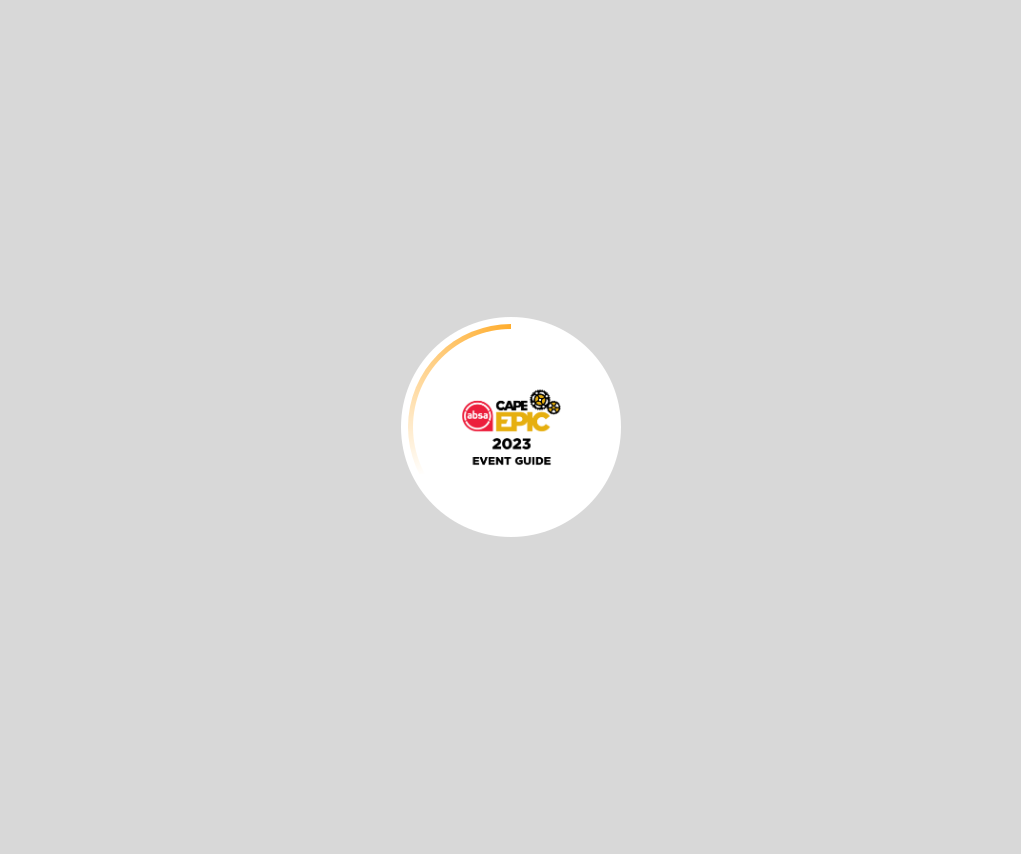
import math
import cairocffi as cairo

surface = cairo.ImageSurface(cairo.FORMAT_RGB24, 1021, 854)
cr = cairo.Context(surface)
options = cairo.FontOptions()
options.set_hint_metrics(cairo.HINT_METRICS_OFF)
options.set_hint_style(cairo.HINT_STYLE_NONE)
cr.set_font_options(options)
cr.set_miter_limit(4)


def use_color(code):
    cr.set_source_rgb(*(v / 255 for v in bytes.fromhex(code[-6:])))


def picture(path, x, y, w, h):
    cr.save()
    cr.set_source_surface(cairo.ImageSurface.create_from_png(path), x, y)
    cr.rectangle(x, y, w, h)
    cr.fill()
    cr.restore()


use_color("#d8d8d8")
cr.paint()
use_color("#ffffff")
cr.arc(511, 427, 110, 0, 2 * math.pi)
cr.fill()
picture("img1.png", 408, 324, 103, 150)
cr.arc(511, 427, 98, 0, 2 * math.pi)
cr.fill()
picture("img2.png", 462, 389, 99, 77)
surface.write_to_png("result.png")
